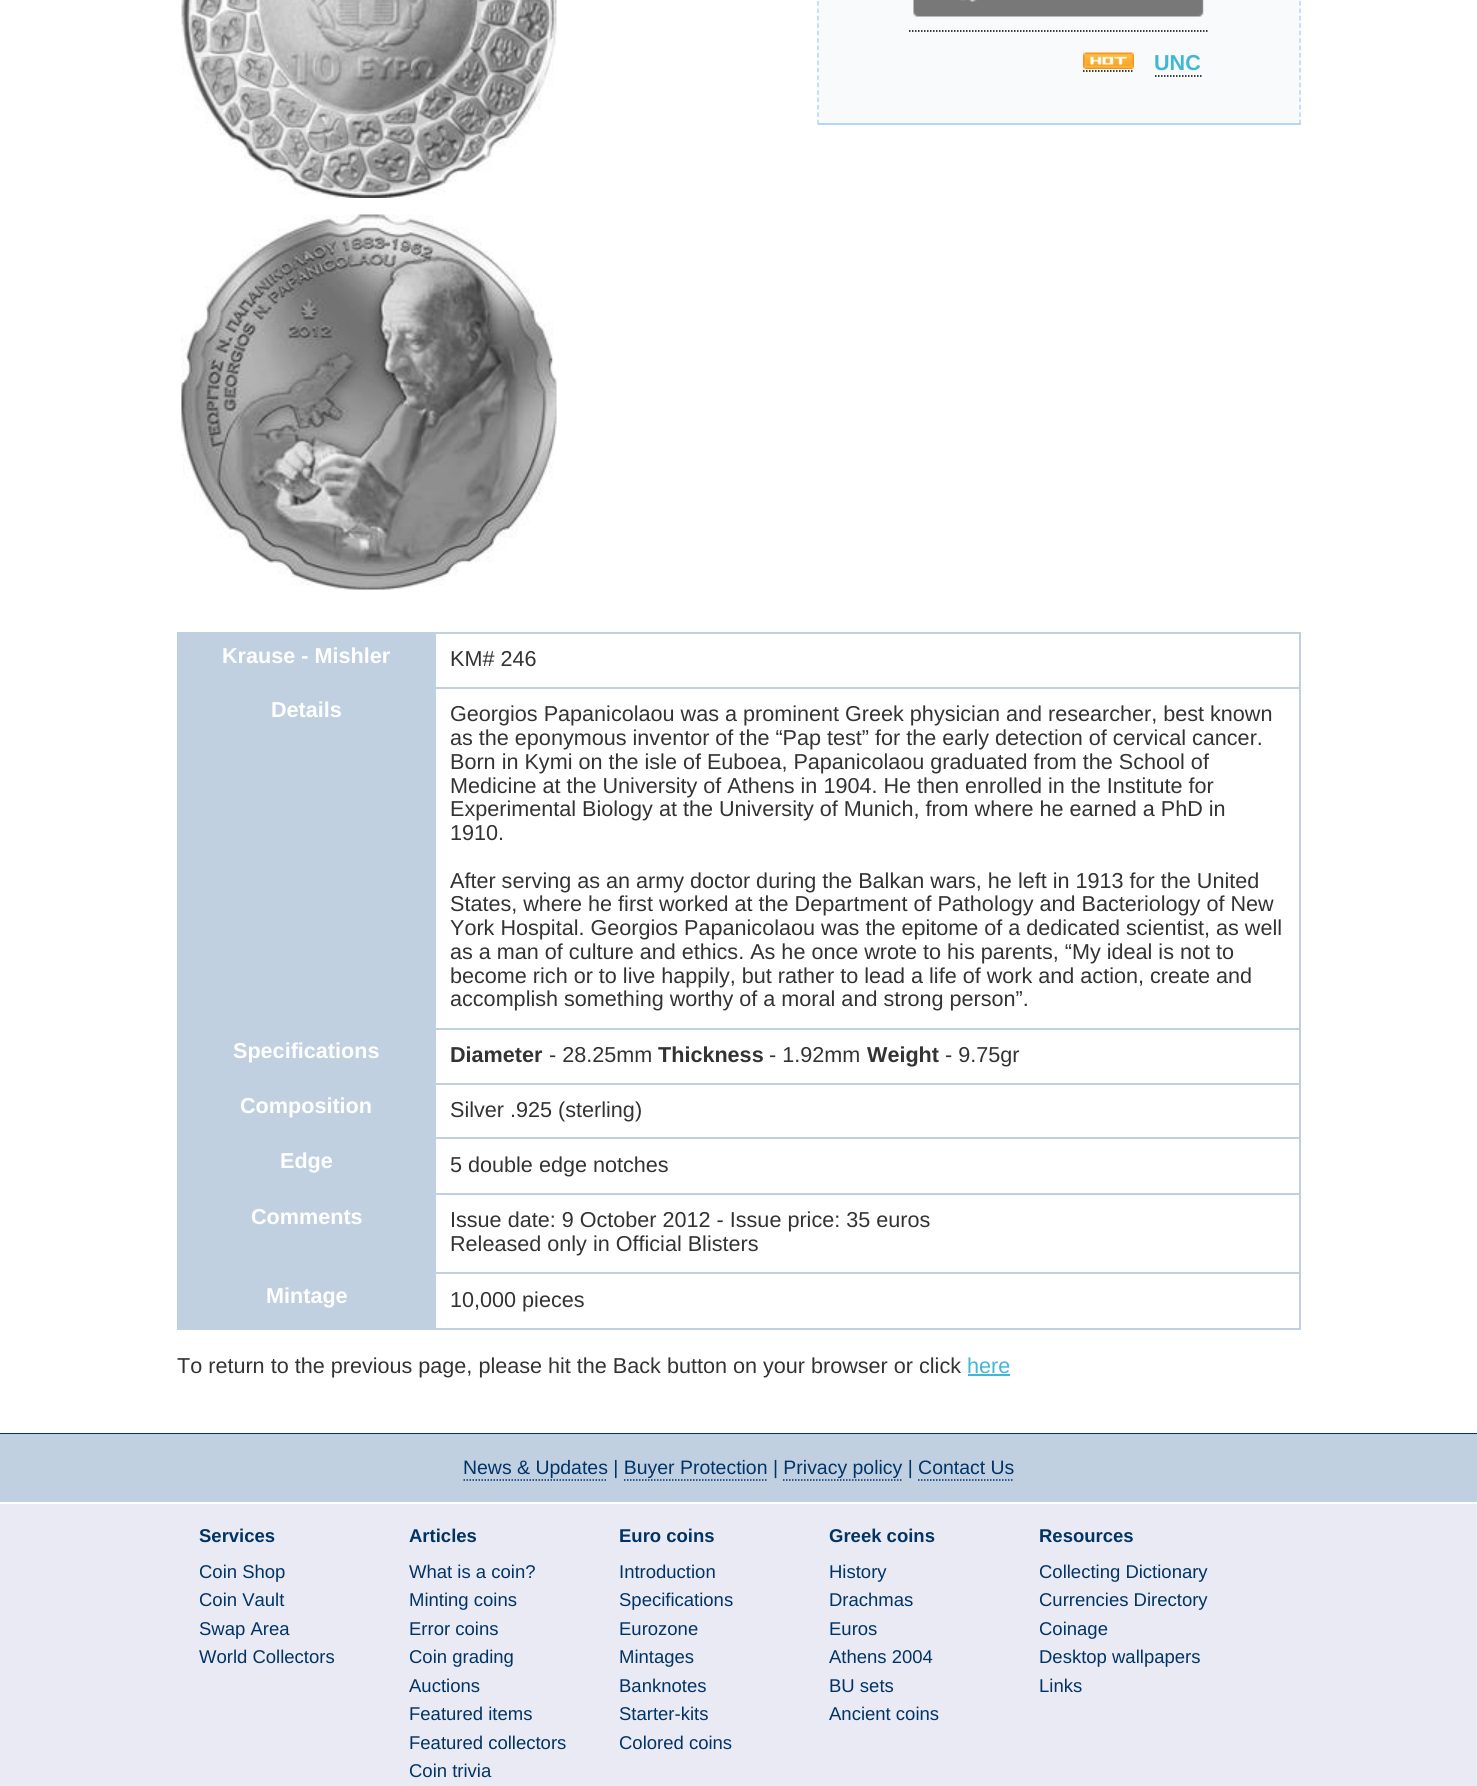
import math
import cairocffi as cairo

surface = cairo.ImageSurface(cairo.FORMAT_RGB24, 1477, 1786)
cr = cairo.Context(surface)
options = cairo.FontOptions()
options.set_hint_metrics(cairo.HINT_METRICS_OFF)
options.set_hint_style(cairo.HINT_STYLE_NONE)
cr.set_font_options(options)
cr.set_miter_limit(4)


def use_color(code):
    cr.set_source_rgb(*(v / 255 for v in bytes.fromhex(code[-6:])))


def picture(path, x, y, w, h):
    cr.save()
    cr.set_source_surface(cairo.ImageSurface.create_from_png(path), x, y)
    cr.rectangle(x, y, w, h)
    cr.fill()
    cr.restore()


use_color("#ffffff")
cr.paint()
picture("img1.png", 181, 0, 376, 198)
picture("img2.png", 181, 214, 376, 376)
use_color("#f8fafc")
cr.rectangle(818, 0, 483, 123)
cr.fill()
cr.new_path()
cr.move_to(1300, -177)
cr.line_to(1300, 124.5)
use_color("#b5d4fe")
cr.set_line_width(1.5)
cr.set_dash([4.5, 2.92])
cr.stroke()
cr.rectangle(818, 123, 483, 2)
cr.fill()
cr.new_path()
cr.move_to(818, -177)
cr.line_to(818, 124.5)
cr.stroke()
cr.new_path()
cr.move_to(909, 31)
cr.line_to(1209, 31)
use_color("#000000")
cr.set_dash([1.5, 1.5])
cr.stroke()
picture("img3.png", 913, 0, 291, 17)
picture("img4.png", 1083, 52, 51, 17)
cr.select_font_face("Liberation Sans", cairo.FONT_SLANT_NORMAL, cairo.FONT_WEIGHT_BOLD)
cr.set_font_size(21.6)
use_color("#41b7d8")
cr.move_to(1154, 70)
cr.show_text("UNC")
cr.new_path()
cr.move_to(1155, 76)
cr.line_to(1201.5, 76)
use_color("#000000")
cr.stroke()
cr.new_path()
cr.move_to(1083, 71)
cr.line_to(1134, 71)
cr.stroke()
use_color("#c0d0e0")
cr.rectangle(177, 632, 1124, 2)
cr.fill()
cr.rectangle(1299, 632, 2, 697)
cr.fill()
cr.rectangle(177, 1328, 1124, 2)
cr.fill()
cr.rectangle(177, 632, 2, 697)
cr.fill()
cr.rectangle(179, 634, 255, 694)
cr.fill()
use_color("#ffffff")
cr.move_to(222, 663)
cr.show_text("Krause - Mishler")
cr.select_font_face("Liberation Sans")
use_color("#333333")
cr.move_to(450, 666)
cr.show_text("KM# 246")
cr.select_font_face("Liberation Sans", cairo.FONT_SLANT_NORMAL, cairo.FONT_WEIGHT_BOLD)
use_color("#ffffff")
cr.move_to(271, 717)
cr.show_text("Details")
use_color("#c0d0e0")
cr.rectangle(434, 687, 867, 2)
cr.fill()
cr.rectangle(434, 1028, 867, 2)
cr.fill()
cr.rectangle(434, 1083, 867, 2)
cr.fill()
cr.rectangle(434, 1137, 867, 2)
cr.fill()
cr.rectangle(434, 1193, 867, 2)
cr.fill()
cr.rectangle(434, 1272, 867, 2)
cr.fill()
cr.rectangle(434, 1272, 2, 57)
cr.fill()
cr.rectangle(434, 1193, 2, 81)
cr.fill()
cr.rectangle(434, 1137, 2, 57)
cr.fill()
cr.rectangle(434, 1083, 2, 56)
cr.fill()
cr.rectangle(434, 1028, 2, 57)
cr.fill()
cr.rectangle(434, 632, 2, 397)
cr.fill()
cr.select_font_face("Liberation Sans")
use_color("#333333")
cr.move_to(450, 721)
cr.show_text("Georgios Papanicolaou was a prominent Greek physician and researcher, best known")
cr.move_to(450, 745)
cr.show_text("as the eponymous inventor of the “Pap test” for the early detection of cervical cancer.")
cr.move_to(450, 769)
cr.show_text("Born in Kymi on the isle of Euboea, Papanicolaou graduated from the School of")
cr.move_to(450, 793)
cr.show_text("Medicine at the University of Athens in 1904. He then enrolled in the Institute for")
cr.move_to(450, 816)
cr.show_text("Experimental Biology at the University of Munich, from where he earned a PhD in")
cr.move_to(450, 840)
cr.show_text("1910.")
cr.move_to(450, 888)
cr.show_text("After serving as an army doctor during the Balkan wars, he left in 1913 for the United")
cr.move_to(450, 911)
cr.show_text("States, where he first worked at the Department of Pathology and Bacteriology of New")
cr.move_to(450, 935)
cr.show_text("York Hospital. Georgios Papanicolaou was the epitome of a dedicated scientist, as well")
cr.move_to(450, 959)
cr.show_text("as a man of culture and ethics. As he once wrote to his parents, “My ideal is not to")
cr.move_to(450, 983)
cr.show_text("become rich or to live happily, but rather to lead a life of work and action, create and")
cr.move_to(450, 1006)
cr.show_text("accomplish something worthy of a moral and strong person”.")
cr.select_font_face("Liberation Sans", cairo.FONT_SLANT_NORMAL, cairo.FONT_WEIGHT_BOLD)
use_color("#ffffff")
cr.move_to(233, 1058)
cr.show_text("Specifications")
use_color("#333333")
cr.move_to(450, 1062)
cr.show_text("Diameter")
cr.select_font_face("Liberation Sans")
cr.move_to(549, 1062)
cr.show_text("- 28.25mm")
cr.select_font_face("Liberation Sans", cairo.FONT_SLANT_NORMAL, cairo.FONT_WEIGHT_BOLD)
cr.move_to(658, 1062)
cr.show_text("Thickness")
cr.select_font_face("Liberation Sans")
cr.move_to(769, 1062)
cr.show_text("- 1.92mm")
cr.select_font_face("Liberation Sans", cairo.FONT_SLANT_NORMAL, cairo.FONT_WEIGHT_BOLD)
cr.move_to(867, 1062)
cr.show_text("Weight")
cr.select_font_face("Liberation Sans")
cr.move_to(945, 1062)
cr.show_text("- 9.75gr")
cr.select_font_face("Liberation Sans", cairo.FONT_SLANT_NORMAL, cairo.FONT_WEIGHT_BOLD)
use_color("#ffffff")
cr.move_to(240, 1113)
cr.show_text("Composition")
cr.select_font_face("Liberation Sans")
use_color("#333333")
cr.move_to(450, 1117)
cr.show_text("Silver .925 (sterling)")
cr.select_font_face("Liberation Sans", cairo.FONT_SLANT_NORMAL, cairo.FONT_WEIGHT_BOLD)
use_color("#ffffff")
cr.move_to(280, 1168)
cr.show_text("Edge")
cr.select_font_face("Liberation Sans")
use_color("#333333")
cr.move_to(450, 1172)
cr.show_text("5 double edge notches")
cr.select_font_face("Liberation Sans", cairo.FONT_SLANT_NORMAL, cairo.FONT_WEIGHT_BOLD)
use_color("#ffffff")
cr.move_to(251, 1224)
cr.show_text("Comments")
cr.select_font_face("Liberation Sans")
use_color("#333333")
cr.move_to(450, 1227)
cr.show_text("Issue date: 9 October 2012 - Issue price: 35 euros")
cr.move_to(450, 1251)
cr.show_text("Released only in Official Blisters")
cr.select_font_face("Liberation Sans", cairo.FONT_SLANT_NORMAL, cairo.FONT_WEIGHT_BOLD)
use_color("#ffffff")
cr.move_to(266, 1303)
cr.show_text("Mintage")
cr.select_font_face("Liberation Sans")
use_color("#333333")
cr.move_to(450, 1307)
cr.show_text("10,000 pieces")
cr.move_to(177, 1373)
cr.show_text("To return to the previous page, please hit the Back button on your browser or click")
use_color("#41b7d8")
cr.move_to(967, 1373)
cr.show_text("here")
cr.rectangle(968, 1374, 42, 2)
cr.fill()
use_color("#e9eaf4")
cr.rectangle(0, 1504, 1477, 282)
cr.fill()
use_color("#003366")
cr.rectangle(0, 1433, 1477, 1)
cr.fill()
use_color("#c0d0e0")
cr.rectangle(0, 1434, 1477, 68)
cr.fill()
cr.set_font_size(19.45)
use_color("#003366")
cr.move_to(463, 1474)
cr.show_text("News & Updates | Buyer Protection | Privacy policy | Contact Us")
cr.new_path()
cr.move_to(463.5, 1480)
cr.line_to(511.5, 1480)
cr.stroke()
cr.new_path()
cr.move_to(511.5, 1480)
cr.line_to(607.5, 1480)
cr.stroke()
cr.new_path()
cr.move_to(624, 1480)
cr.line_to(768, 1480)
cr.stroke()
cr.new_path()
cr.move_to(783, 1480)
cr.line_to(901.5, 1480)
cr.stroke()
cr.new_path()
cr.move_to(918, 1480)
cr.line_to(1014, 1480)
cr.stroke()
cr.select_font_face("Liberation Sans", cairo.FONT_SLANT_NORMAL, cairo.FONT_WEIGHT_BOLD)
cr.set_font_size(18.5)
cr.move_to(199, 1542)
cr.show_text("Services")
cr.select_font_face("Liberation Sans")
cr.move_to(199, 1578)
cr.show_text("Coin Shop")
cr.move_to(199, 1606)
cr.show_text("Coin Vault")
cr.move_to(199, 1635)
cr.show_text("Swap Area")
cr.move_to(199, 1663)
cr.show_text("World Collectors")
cr.select_font_face("Liberation Sans", cairo.FONT_SLANT_NORMAL, cairo.FONT_WEIGHT_BOLD)
cr.move_to(409, 1542)
cr.show_text("Articles")
cr.select_font_face("Liberation Sans")
cr.move_to(409, 1578)
cr.show_text("What is a coin?")
cr.move_to(409, 1606)
cr.show_text("Minting coins")
cr.move_to(409, 1635)
cr.show_text("Error coins")
cr.move_to(409, 1663)
cr.show_text("Coin grading")
cr.move_to(409, 1692)
cr.show_text("Auctions")
cr.move_to(409, 1720)
cr.show_text("Featured items")
cr.move_to(409, 1749)
cr.show_text("Featured collectors")
cr.move_to(409, 1777)
cr.show_text("Coin trivia")
cr.select_font_face("Liberation Sans", cairo.FONT_SLANT_NORMAL, cairo.FONT_WEIGHT_BOLD)
cr.move_to(619, 1542)
cr.show_text("Euro coins")
cr.select_font_face("Liberation Sans")
cr.move_to(619, 1578)
cr.show_text("Introduction")
cr.move_to(619, 1606)
cr.show_text("Specifications")
cr.move_to(619, 1635)
cr.show_text("Eurozone")
cr.move_to(619, 1663)
cr.show_text("Mintages")
cr.move_to(619, 1692)
cr.show_text("Banknotes")
cr.move_to(619, 1720)
cr.show_text("Starter-kits")
cr.move_to(619, 1749)
cr.show_text("Colored coins")
cr.select_font_face("Liberation Sans", cairo.FONT_SLANT_NORMAL, cairo.FONT_WEIGHT_BOLD)
cr.move_to(829, 1542)
cr.show_text("Greek coins")
cr.select_font_face("Liberation Sans")
cr.move_to(829, 1578)
cr.show_text("History")
cr.move_to(829, 1606)
cr.show_text("Drachmas")
cr.move_to(829, 1635)
cr.show_text("Euros")
cr.move_to(829, 1663)
cr.show_text("Athens 2004")
cr.move_to(829, 1692)
cr.show_text("BU sets")
cr.move_to(829, 1720)
cr.show_text("Ancient coins")
cr.select_font_face("Liberation Sans", cairo.FONT_SLANT_NORMAL, cairo.FONT_WEIGHT_BOLD)
cr.move_to(1039, 1542)
cr.show_text("Resources")
cr.select_font_face("Liberation Sans")
cr.move_to(1039, 1578)
cr.show_text("Collecting Dictionary")
cr.move_to(1039, 1606)
cr.show_text("Currencies Directory")
cr.move_to(1039, 1635)
cr.show_text("Coinage")
cr.move_to(1039, 1663)
cr.show_text("Desktop wallpapers")
cr.move_to(1039, 1692)
cr.show_text("Links")
surface.write_to_png("result.png")
